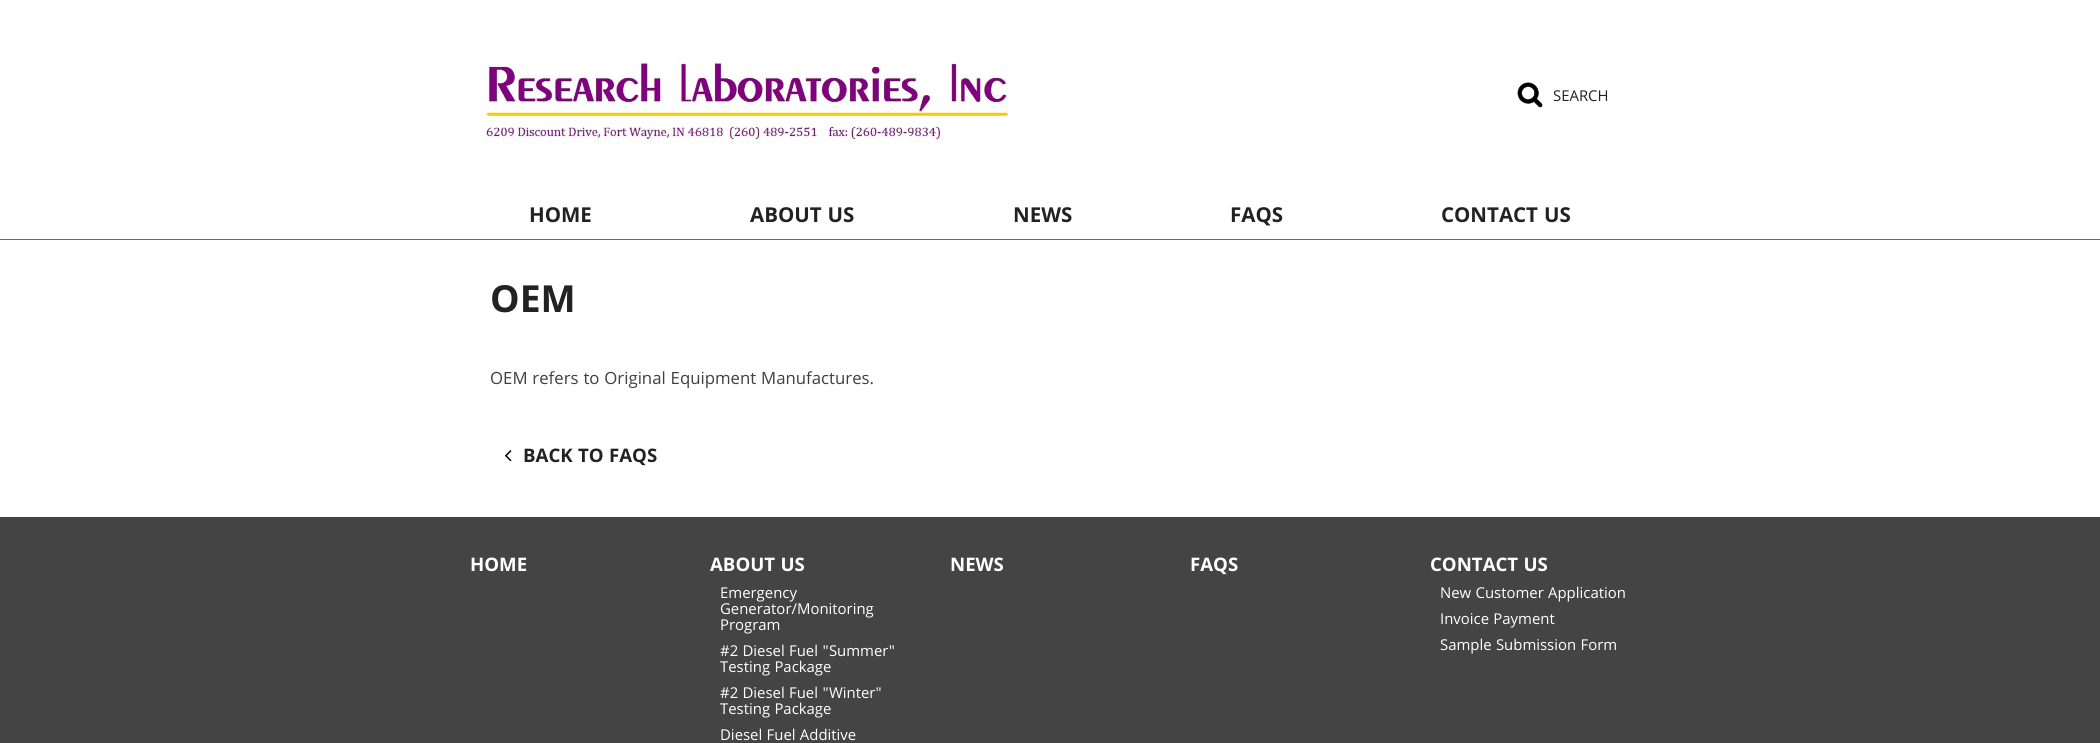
import math
import cairocffi as cairo

surface = cairo.ImageSurface(cairo.FORMAT_RGB24, 2100, 743)
cr = cairo.Context(surface)
options = cairo.FontOptions()
options.set_hint_metrics(cairo.HINT_METRICS_OFF)
options.set_hint_style(cairo.HINT_STYLE_NONE)
cr.set_font_options(options)
cr.set_miter_limit(4)


def use_color(code):
    cr.set_source_rgb(*(v / 255 for v in bytes.fromhex(code[-6:])))


def picture(path, x, y, w, h):
    cr.save()
    cr.set_source_surface(cairo.ImageSurface.create_from_png(path), x, y)
    cr.rectangle(x, y, w, h)
    cr.fill()
    cr.restore()


use_color("#ffffff")
cr.paint()
use_color("#994b99")
cr.rectangle(0, 239, 2100, 1)
cr.fill()
picture("img1.png", 480, 57, 529, 87)
picture("img2.png", 1517, 82, 26, 26)
cr.select_font_face("Khula")
cr.set_font_size(16)
use_color("#222222")
cr.move_to(1553, 101)
cr.show_text("SEARCH")
cr.select_font_face("Khula", cairo.FONT_SLANT_NORMAL, cairo.FONT_WEIGHT_BOLD)
cr.set_font_size(22)
cr.move_to(529, 222)
cr.show_text("HOME")
cr.move_to(750, 222)
cr.show_text("ABOUT US")
cr.move_to(1013, 222)
cr.show_text("NEWS")
cr.move_to(1230, 222)
cr.show_text("FAQS")
cr.move_to(1441, 222)
cr.show_text("CONTACT US")
cr.set_font_size(40)
cr.move_to(490, 312)
cr.show_text("OEM")
cr.select_font_face("Khula")
cr.set_font_size(18)
use_color("#3f3f3f")
cr.move_to(490, 384)
cr.show_text("OEM refers to Original Equipment Manufactures.")
picture("img3.png", 505, 450, 7, 12)
cr.select_font_face("Khula", cairo.FONT_SLANT_NORMAL, cairo.FONT_WEIGHT_BOLD)
cr.set_font_size(20)
use_color("#222222")
cr.move_to(523, 462)
cr.show_text("BACK TO FAQS")
use_color("#444444")
cr.rectangle(0, 517, 2100, 226)
cr.fill()
use_color("#ffffff")
cr.move_to(470, 571)
cr.show_text("HOME")
cr.move_to(710, 571)
cr.show_text("ABOUT US")
cr.select_font_face("Khula")
cr.set_font_size(16)
cr.move_to(720, 598)
cr.show_text("Emergency")
cr.move_to(720, 614)
cr.show_text("Generator/Monitoring")
cr.move_to(720, 630)
cr.show_text("Program")
cr.move_to(720, 656)
cr.show_text("#2 Diesel Fuel \"Summer\"")
cr.move_to(720, 672)
cr.show_text("Testing Package")
cr.move_to(720, 698)
cr.show_text("#2 Diesel Fuel \"Winter\"")
cr.move_to(720, 714)
cr.show_text("Testing Package")
cr.move_to(720, 740)
cr.show_text("Diesel Fuel Additive")
cr.select_font_face("Khula", cairo.FONT_SLANT_NORMAL, cairo.FONT_WEIGHT_BOLD)
cr.set_font_size(20)
cr.move_to(950, 571)
cr.show_text("NEWS")
cr.move_to(1190, 571)
cr.show_text("FAQS")
cr.move_to(1430, 571)
cr.show_text("CONTACT US")
cr.select_font_face("Khula")
cr.set_font_size(16)
cr.move_to(1440, 598)
cr.show_text("New Customer Application")
cr.move_to(1440, 624)
cr.show_text("Invoice Payment")
cr.move_to(1440, 650)
cr.show_text("Sample Submission Form")
surface.write_to_png("result.png")
